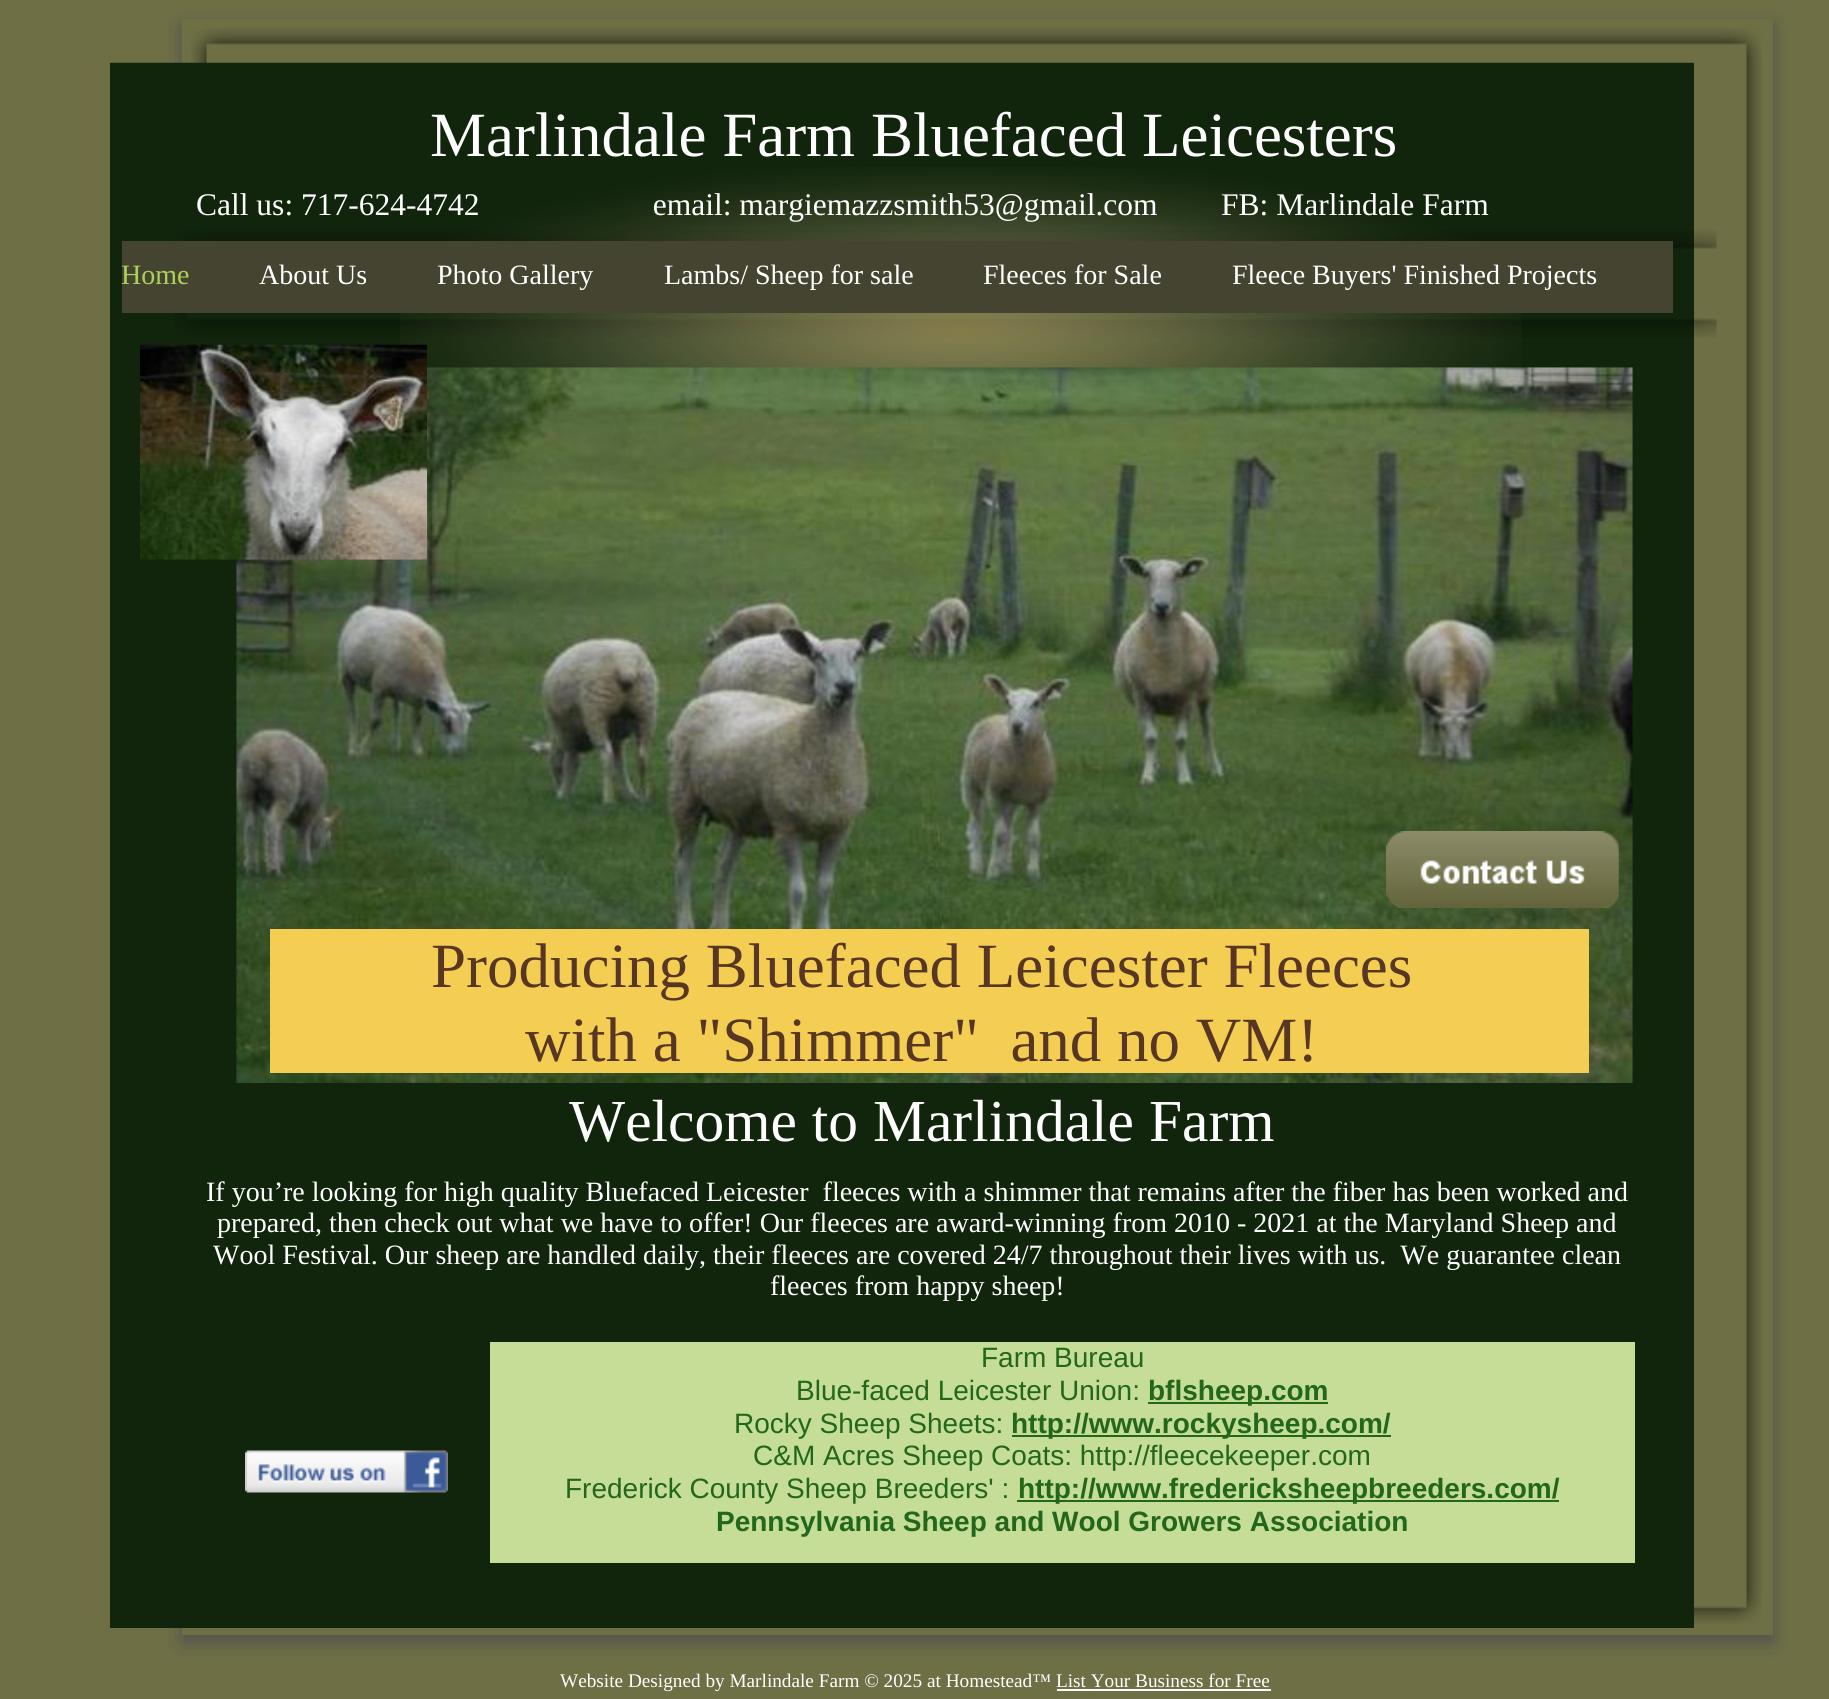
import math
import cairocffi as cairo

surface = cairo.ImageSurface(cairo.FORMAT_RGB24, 1829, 1699)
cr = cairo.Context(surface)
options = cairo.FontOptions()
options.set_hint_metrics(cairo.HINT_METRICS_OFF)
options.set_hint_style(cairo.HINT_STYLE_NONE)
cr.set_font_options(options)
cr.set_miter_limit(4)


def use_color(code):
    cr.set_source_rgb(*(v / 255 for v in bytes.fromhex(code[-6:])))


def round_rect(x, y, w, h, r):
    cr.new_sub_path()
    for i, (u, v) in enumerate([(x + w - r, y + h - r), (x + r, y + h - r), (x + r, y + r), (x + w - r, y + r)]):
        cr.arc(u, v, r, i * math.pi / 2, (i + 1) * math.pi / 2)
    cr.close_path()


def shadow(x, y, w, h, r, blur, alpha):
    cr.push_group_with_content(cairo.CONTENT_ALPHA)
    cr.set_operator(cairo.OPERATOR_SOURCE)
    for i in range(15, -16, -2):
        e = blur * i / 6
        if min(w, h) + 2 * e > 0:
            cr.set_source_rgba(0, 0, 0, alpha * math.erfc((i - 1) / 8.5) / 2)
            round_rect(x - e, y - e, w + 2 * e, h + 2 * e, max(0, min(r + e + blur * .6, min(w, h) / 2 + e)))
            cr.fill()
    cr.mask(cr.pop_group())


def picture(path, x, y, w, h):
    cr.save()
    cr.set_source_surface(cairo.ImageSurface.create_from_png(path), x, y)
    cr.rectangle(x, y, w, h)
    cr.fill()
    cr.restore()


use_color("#6e6f45")
cr.paint()
cr.save()
cr.set_fill_rule(cairo.FILL_RULE_EVEN_ODD)
cr.new_path()
cr.move_to(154, 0)
cr.line_to(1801, 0)
cr.line_to(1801, 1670)
cr.line_to(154, 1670)
cr.close_path()
cr.move_to(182, 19)
cr.line_to(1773, 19)
cr.line_to(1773, 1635)
cr.line_to(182, 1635)
cr.close_path()
cr.clip()
use_color("#505050")
shadow(182, 26, 1591, 1616, 0, 9, 1)
cr.restore()
picture("img1.png", 191, 28, 1571, 1596)
use_color("#11240c")
cr.rectangle(110, 63, 1584, 1565)
cr.fill()
picture("img2.png", 110, 62, 1584, 1)
cr.select_font_face("Liberation Serif")
cr.set_font_size(63)
use_color("#ffffff")
cr.move_to(430, 156)
cr.show_text("Marlindale Farm Bluefaced Leicesters")
picture("img4.png", 174, 229, 1543, 109)
picture("img3.png", 400, 167, 1122, 201)
cr.set_font_size(31.5)
cr.move_to(196, 215)
cr.show_text("Call us: 717-624-4742                      email: margiemazzsmith53@gmail.com")
cr.move_to(1221, 215)
cr.show_text("FB: Marlindale Farm")
use_color("#444430")
cr.rectangle(122, 241, 1551, 72)
cr.fill()
cr.set_font_size(28)
use_color("#add158")
cr.move_to(121, 284)
cr.show_text("Home")
use_color("#ffffff")
cr.move_to(259, 284)
cr.show_text("About Us")
cr.move_to(437, 284)
cr.show_text("Photo Gallery")
cr.move_to(664, 284)
cr.show_text("Lambs/ Sheep for sale")
cr.move_to(983, 284)
cr.show_text("Fleeces for Sale")
cr.move_to(1232, 284)
cr.show_text("Fleece Buyers' Finished Projects")
picture("img6.png", 236, 367, 1397, 716)
picture("img5.png", 140, 344, 287, 216)
picture("img7.png", 1386, 831, 233, 77)
use_color("#f4ce53")
cr.rectangle(270, 929, 1319, 144)
cr.fill()
cr.set_font_size(63)
use_color("#583624")
cr.move_to(431, 987)
cr.show_text("Producing Bluefaced Leicester Fleeces")
cr.move_to(525, 1061)
cr.show_text("with a \"Shimmer\"  and no VM!")
cr.set_font_size(59.5)
use_color("#ffffff")
cr.move_to(569, 1141)
cr.show_text("Welcome to Marlindale Farm")
cr.set_font_size(28)
cr.move_to(206, 1201)
cr.show_text("If you’re looking for high quality Bluefaced Leicester  fleeces with a shimmer that remains after the fiber has been worked and")
cr.move_to(217, 1232)
cr.show_text("prepared, then check out what we have to offer! Our fleeces are award-winning from 2010 - 2021 at the Maryland Sheep and")
cr.move_to(213, 1264)
cr.show_text("Wool Festival. Our sheep are handled daily, their fleeces are covered 24/7 throughout their lives with us.  We guarantee clean")
cr.move_to(770, 1295)
cr.show_text("fleeces from happy sheep!")
picture("img8.png", 245, 1450, 203, 43)
use_color("#c5dd97")
cr.rectangle(490, 1342, 1145, 221)
cr.fill()
cr.select_font_face("Liberation Sans")
use_color("#23671c")
cr.move_to(981, 1367)
cr.show_text("Farm Bureau")
cr.move_to(796, 1400)
cr.show_text("Blue-faced Leicester Union:")
cr.rectangle(1148, 1402, 180, 2)
cr.fill()
cr.select_font_face("Liberation Sans", cairo.FONT_SLANT_NORMAL, cairo.FONT_WEIGHT_BOLD)
cr.move_to(1148, 1400)
cr.show_text("bflsheep.com")
cr.select_font_face("Liberation Sans")
cr.move_to(734, 1433)
cr.show_text("Rocky Sheep Sheets:")
cr.rectangle(1012, 1435, 379, 2)
cr.fill()
cr.select_font_face("Liberation Sans", cairo.FONT_SLANT_NORMAL, cairo.FONT_WEIGHT_BOLD)
cr.move_to(1011, 1433)
cr.show_text("http://www.rockysheep.com/")
cr.select_font_face("Liberation Sans")
cr.move_to(753, 1465)
cr.show_text("C&M Acres Sheep Coats: http://fleecekeeper.com")
cr.move_to(565, 1498)
cr.show_text("Frederick County Sheep Breeders' :")
cr.rectangle(1017, 1500, 542, 2)
cr.fill()
cr.select_font_face("Liberation Sans", cairo.FONT_SLANT_NORMAL, cairo.FONT_WEIGHT_BOLD)
cr.move_to(1018, 1498)
cr.show_text("http://www.fredericksheepbreeders.com/")
cr.move_to(716, 1531)
cr.show_text("Pennsylvania Sheep and Wool Growers Association")
cr.select_font_face("Liberation Serif")
cr.set_font_size(19.25)
use_color("#ffffff")
cr.move_to(560, 1687)
cr.show_text("Website Designed by Marlindale Farm © 2025 at Homestead™ List Your Business for Free")
cr.rectangle(1057, 1689, 214, 2)
cr.fill()
surface.write_to_png("result.png")
